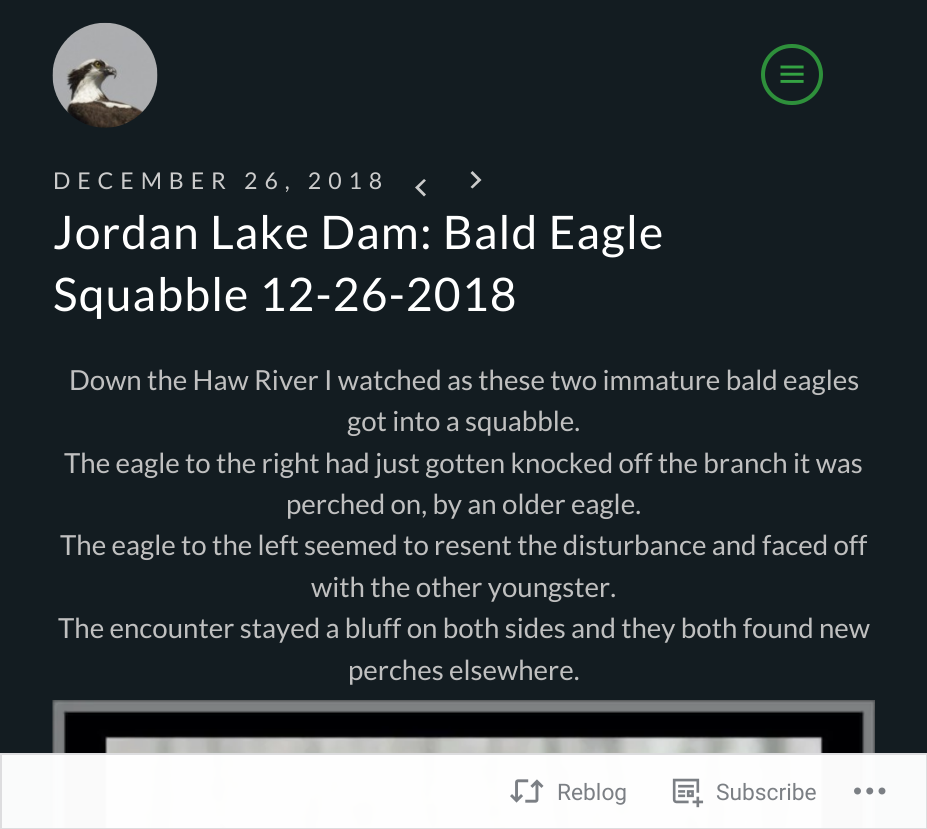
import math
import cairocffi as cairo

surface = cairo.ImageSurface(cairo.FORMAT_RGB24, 927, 829)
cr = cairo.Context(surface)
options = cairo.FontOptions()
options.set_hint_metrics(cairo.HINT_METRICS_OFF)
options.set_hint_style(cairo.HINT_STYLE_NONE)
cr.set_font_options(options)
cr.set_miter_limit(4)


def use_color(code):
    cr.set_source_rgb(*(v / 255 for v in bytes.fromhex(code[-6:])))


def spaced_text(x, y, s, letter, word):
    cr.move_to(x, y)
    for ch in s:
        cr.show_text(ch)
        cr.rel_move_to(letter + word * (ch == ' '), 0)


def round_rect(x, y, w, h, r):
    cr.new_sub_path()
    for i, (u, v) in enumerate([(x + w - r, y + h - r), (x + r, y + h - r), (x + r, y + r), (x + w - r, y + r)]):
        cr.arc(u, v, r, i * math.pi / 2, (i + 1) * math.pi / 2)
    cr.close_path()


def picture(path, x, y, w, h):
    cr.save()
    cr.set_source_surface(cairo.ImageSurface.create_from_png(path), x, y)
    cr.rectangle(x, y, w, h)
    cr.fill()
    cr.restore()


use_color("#131c21")
cr.paint()
picture("img1.png", 52, 22, 106, 106)
round_rect(763, 46, 58, 57, 28.5)
use_color("#2e903b")
cr.set_line_width(4)
cr.stroke()
picture("img2.png", 780, 65, 24, 18)
cr.select_font_face("Lato")
cr.set_font_size(23.1)
use_color("#cccccc")
spaced_text(53, 189, "DECEMBER 26, 2018", 6.9, 0)
cr.new_path()
cr.move_to(426, 194.5)
cr.line_to(424, 196.5)
cr.line_to(415, 187.5)
cr.line_to(424, 179)
cr.line_to(426, 180.5)
cr.line_to(419, 187.5)
cr.close_path()
cr.fill()
cr.new_path()
cr.move_to(470.5, 173)
cr.line_to(472.5, 171)
cr.line_to(481.5, 180)
cr.line_to(472.5, 188.5)
cr.line_to(470.5, 187)
cr.line_to(477.5, 180)
cr.close_path()
cr.fill()
cr.set_font_size(46.25)
use_color("#ffffff")
spaced_text(53, 249, "Jordan Lake Dam: Bald Eagle", 1.15, 0)
spaced_text(53, 311, "Squabble 12-26-2018", 1.15, 0)
cr.set_font_size(27.65)
use_color("#c0c0c0")
cr.move_to(69, 390)
cr.show_text("Down the Haw River I watched as these two immature bald eagles")
cr.move_to(347, 431)
cr.show_text("got into a squabble.")
cr.move_to(64, 473)
cr.show_text("The eagle to the right had just gotten knocked off the branch it was")
cr.move_to(286, 514)
cr.show_text("perched on, by an older eagle.")
cr.move_to(60, 555)
cr.show_text("The eagle to the left seemed to resent the disturbance and faced off")
cr.move_to(311, 597)
cr.show_text("with the other youngster.")
cr.move_to(58, 638)
cr.show_text("The encounter stayed a bluff on both sides and they both found new")
cr.move_to(348, 680)
cr.show_text("perches elsewhere.")
picture("img3.png", 52, 700, 823, 129)
cr.set_source_rgba(1, 1, 1, 0.98)
cr.rectangle(0, 753, 927, 76)
cr.fill()
cr.rectangle(1, 754, 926, 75)
cr.set_source_rgba(0.863, 0.863, 0.871, 0.98)
cr.set_line_width(2)
cr.stroke()
picture("img4.png", 510, 779, 34, 24)
cr.select_font_face("Roboto")
cr.set_font_size(22.75)
use_color("#7b7f84")
cr.move_to(557, 800)
cr.show_text("Reblog")
picture("img5.png", 672, 778, 32, 30)
cr.move_to(716, 800)
cr.show_text("Subscribe")
picture("img6.png", 854, 787, 32, 8)
surface.write_to_png("result.png")
